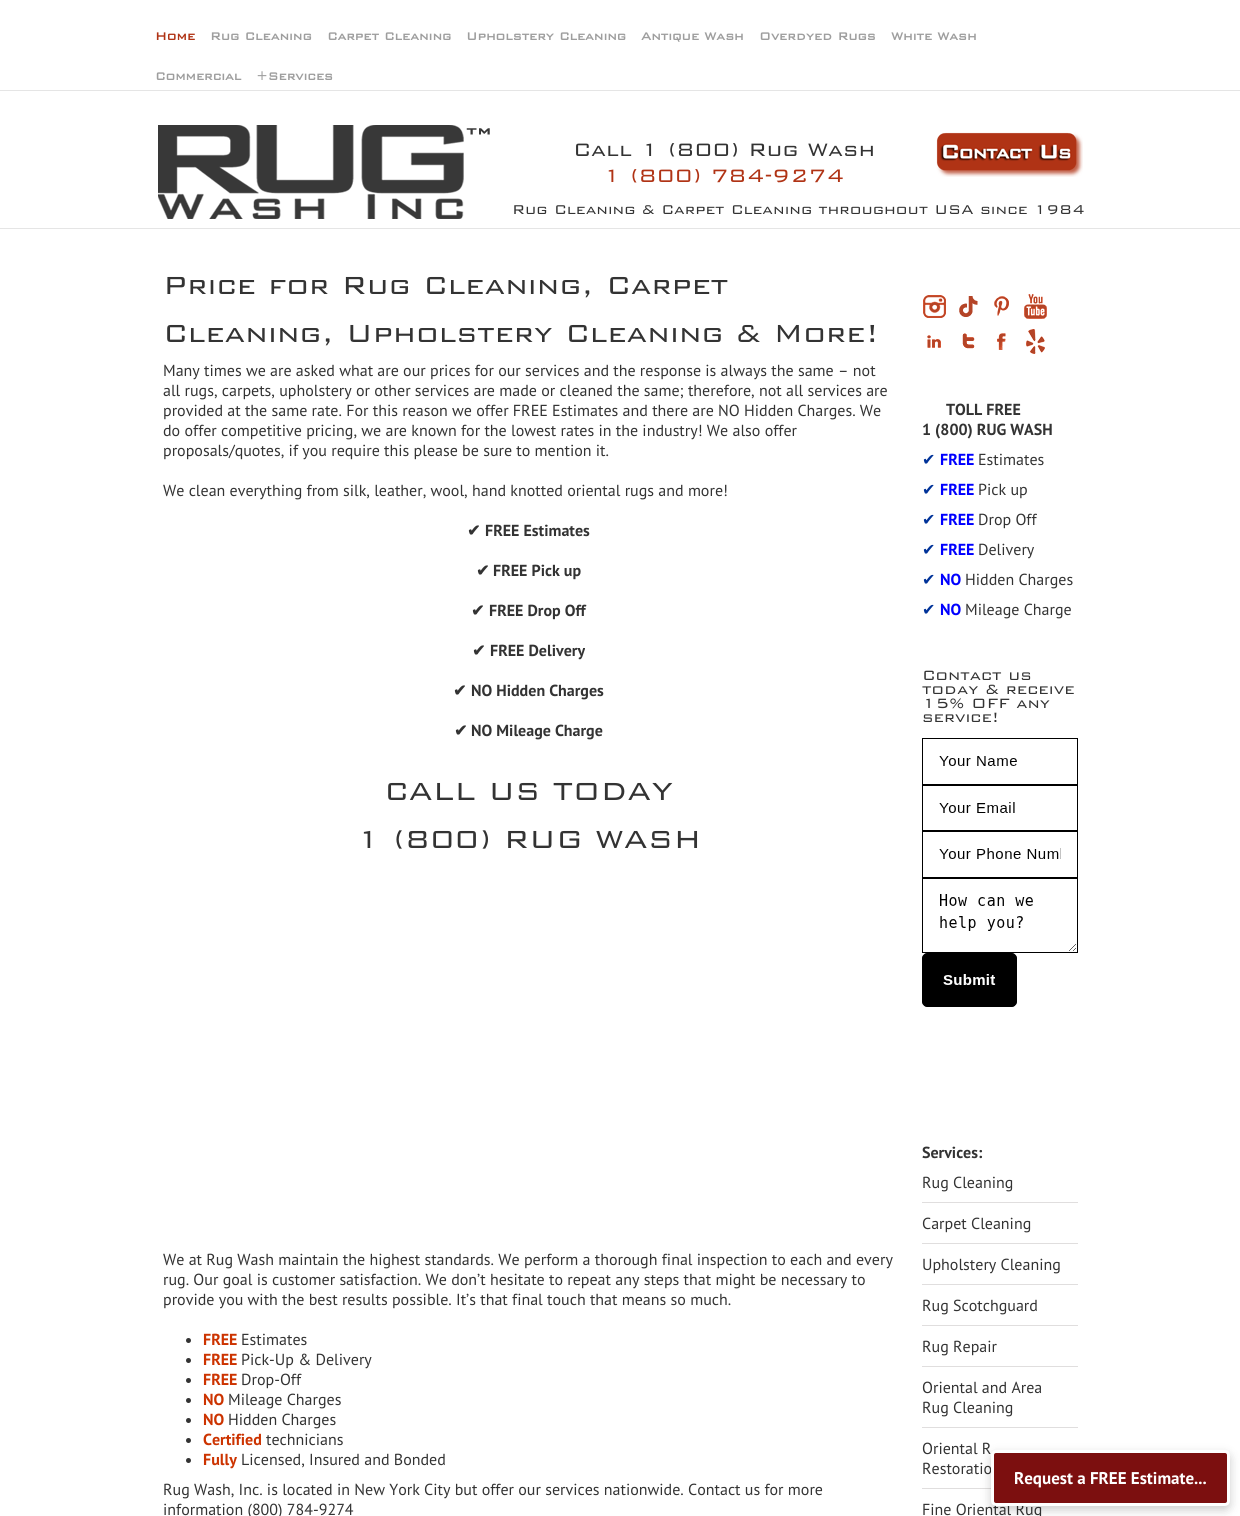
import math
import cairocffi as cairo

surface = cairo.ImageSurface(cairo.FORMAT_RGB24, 1240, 1516)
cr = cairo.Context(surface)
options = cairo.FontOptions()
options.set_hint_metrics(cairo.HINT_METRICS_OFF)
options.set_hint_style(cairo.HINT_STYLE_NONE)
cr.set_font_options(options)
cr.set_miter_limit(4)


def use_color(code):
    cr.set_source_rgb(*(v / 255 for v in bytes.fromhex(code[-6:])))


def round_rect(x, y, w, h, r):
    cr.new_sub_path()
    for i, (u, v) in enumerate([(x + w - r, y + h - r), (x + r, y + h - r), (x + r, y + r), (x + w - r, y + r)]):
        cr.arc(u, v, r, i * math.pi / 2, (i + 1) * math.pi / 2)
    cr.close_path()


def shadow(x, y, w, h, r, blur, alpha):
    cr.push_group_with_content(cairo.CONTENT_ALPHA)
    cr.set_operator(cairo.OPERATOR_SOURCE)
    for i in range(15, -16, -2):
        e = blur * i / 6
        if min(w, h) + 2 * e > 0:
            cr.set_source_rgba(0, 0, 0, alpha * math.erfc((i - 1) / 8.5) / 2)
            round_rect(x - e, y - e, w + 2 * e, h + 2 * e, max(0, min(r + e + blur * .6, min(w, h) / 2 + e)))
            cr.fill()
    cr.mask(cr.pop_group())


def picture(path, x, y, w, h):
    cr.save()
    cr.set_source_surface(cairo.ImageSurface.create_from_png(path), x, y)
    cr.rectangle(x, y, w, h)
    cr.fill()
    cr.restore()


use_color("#ffffff")
cr.paint()
use_color("#e5e5e5")
cr.rectangle(0, 228, 1240, 1)
cr.fill()
cr.rectangle(0, 90, 1240, 1)
cr.fill()
cr.select_font_face("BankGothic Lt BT", cairo.FONT_SLANT_NORMAL, cairo.FONT_WEIGHT_BOLD)
cr.set_font_size(14)
use_color("#b03315")
cr.move_to(155, 40)
cr.show_text("Home")
use_color("#9e9e9e")
cr.move_to(210, 40)
cr.show_text("Rug Cleaning")
cr.move_to(327, 40)
cr.show_text("Carpet Cleaning")
cr.move_to(466, 40)
cr.show_text("Upholstery Cleaning")
cr.move_to(641, 40)
cr.show_text("Antique Wash")
cr.move_to(759, 40)
cr.show_text("Overdyed Rugs")
cr.move_to(891, 40)
cr.show_text("White Wash")
cr.move_to(155, 80)
cr.show_text("Commercial")
cr.move_to(256, 80)
cr.show_text("+Services")
picture("img1.png", 158, 125, 332, 94)
cr.select_font_face("BankGothic Lt BT Light")
cr.set_font_size(24)
use_color("#333333")
cr.move_to(573, 156)
cr.show_text("Call 1 (800) Rug Wash")
picture("img2.png", 936, 132, 147, 45)
use_color("#b03315")
cr.move_to(603, 182)
cr.show_text("1 (800) 784-9274")
cr.set_font_size(17)
use_color("#333333")
cr.move_to(512, 214)
cr.show_text("Rug Cleaning & Carpet Cleaning throughout USA since 1984")
cr.set_font_size(33)
cr.move_to(163, 294)
cr.show_text("Price for Rug Cleaning, Carpet")
cr.move_to(163, 342)
cr.show_text("Cleaning, Upholstery Cleaning & More!")
cr.select_font_face("PT Sans")
cr.set_font_size(16)
cr.move_to(163, 376)
cr.show_text("Many times we are asked what are our prices for our services and the response is always the same – not")
cr.move_to(163, 396)
cr.show_text("all rugs, carpets, upholstery or other services are made or cleaned the same; therefore, not all services are")
cr.move_to(163, 416)
cr.show_text("provided at the same rate. For this reason we offer FREE Estimates and there are NO Hidden Charges. We")
cr.move_to(163, 436)
cr.show_text("do offer competitive pricing, we are known for the lowest rates in the industry! We also offer")
cr.move_to(163, 456)
cr.show_text("proposals/quotes, if you require this please be sure to mention it.")
cr.move_to(163, 496)
cr.show_text("We clean everything from silk, leather, wool, hand knotted oriental rugs and more!")
cr.select_font_face("DejaVu Sans", cairo.FONT_SLANT_NORMAL, cairo.FONT_WEIGHT_BOLD)
cr.move_to(467, 536)
cr.show_text("✔")
cr.select_font_face("PT Sans", cairo.FONT_SLANT_NORMAL, cairo.FONT_WEIGHT_BOLD)
cr.move_to(485, 536)
cr.show_text("FREE Estimates")
cr.select_font_face("DejaVu Sans", cairo.FONT_SLANT_NORMAL, cairo.FONT_WEIGHT_BOLD)
cr.move_to(476, 576)
cr.show_text("✔")
cr.select_font_face("PT Sans", cairo.FONT_SLANT_NORMAL, cairo.FONT_WEIGHT_BOLD)
cr.move_to(493, 576)
cr.show_text("FREE Pick up")
cr.select_font_face("DejaVu Sans", cairo.FONT_SLANT_NORMAL, cairo.FONT_WEIGHT_BOLD)
cr.move_to(471, 616)
cr.show_text("✔")
cr.select_font_face("PT Sans", cairo.FONT_SLANT_NORMAL, cairo.FONT_WEIGHT_BOLD)
cr.move_to(489, 616)
cr.show_text("FREE Drop Off")
cr.select_font_face("DejaVu Sans", cairo.FONT_SLANT_NORMAL, cairo.FONT_WEIGHT_BOLD)
cr.move_to(472, 656)
cr.show_text("✔")
cr.select_font_face("PT Sans", cairo.FONT_SLANT_NORMAL, cairo.FONT_WEIGHT_BOLD)
cr.move_to(490, 656)
cr.show_text("FREE Delivery")
cr.select_font_face("DejaVu Sans", cairo.FONT_SLANT_NORMAL, cairo.FONT_WEIGHT_BOLD)
cr.move_to(453, 696)
cr.show_text("✔")
cr.select_font_face("PT Sans", cairo.FONT_SLANT_NORMAL, cairo.FONT_WEIGHT_BOLD)
cr.move_to(471, 696)
cr.show_text("NO Hidden Charges")
cr.select_font_face("DejaVu Sans", cairo.FONT_SLANT_NORMAL, cairo.FONT_WEIGHT_BOLD)
cr.move_to(454, 736)
cr.show_text("✔")
cr.select_font_face("PT Sans", cairo.FONT_SLANT_NORMAL, cairo.FONT_WEIGHT_BOLD)
cr.move_to(471, 736)
cr.show_text("NO Mileage Charge")
cr.select_font_face("BankGothic Lt BT Light")
cr.set_font_size(33)
cr.move_to(384, 800)
cr.show_text("CALL US TODAY")
cr.move_to(356, 848)
cr.show_text("1 (800) RUG WASH")
cr.select_font_face("PT Sans")
cr.set_font_size(16)
cr.move_to(163, 1265)
cr.show_text("We at Rug Wash maintain the highest standards. We perform a thorough final inspection to each and every")
cr.move_to(163, 1285)
cr.show_text("rug. Our goal is customer satisfaction. We don’t hesitate to repeat any steps that might be necessary to")
cr.move_to(163, 1305)
cr.show_text("provide you with the best results possible. It’s that final touch that means so much.")
cr.new_path()
cr.arc(188.5, 1340.5, 2.5, 0, 2 * math.pi)
cr.fill()
cr.select_font_face("PT Sans", cairo.FONT_SLANT_NORMAL, cairo.FONT_WEIGHT_BOLD)
use_color("#cc3300")
cr.move_to(203, 1345)
cr.show_text("FREE")
cr.select_font_face("PT Sans")
use_color("#333333")
cr.move_to(241, 1345)
cr.show_text("Estimates")
cr.new_path()
cr.arc(188.5, 1360.5, 2.5, 0, 2 * math.pi)
cr.fill()
cr.select_font_face("PT Sans", cairo.FONT_SLANT_NORMAL, cairo.FONT_WEIGHT_BOLD)
use_color("#cc3300")
cr.move_to(203, 1365)
cr.show_text("FREE")
cr.select_font_face("PT Sans")
use_color("#333333")
cr.move_to(241, 1365)
cr.show_text("Pick-Up & Delivery")
cr.new_path()
cr.arc(188.5, 1380.5, 2.5, 0, 2 * math.pi)
cr.fill()
cr.select_font_face("PT Sans", cairo.FONT_SLANT_NORMAL, cairo.FONT_WEIGHT_BOLD)
use_color("#cc3300")
cr.move_to(203, 1385)
cr.show_text("FREE")
cr.select_font_face("PT Sans")
use_color("#333333")
cr.move_to(241, 1385)
cr.show_text("Drop-Off")
cr.new_path()
cr.arc(188.5, 1400.5, 2.5, 0, 2 * math.pi)
cr.fill()
cr.select_font_face("PT Sans", cairo.FONT_SLANT_NORMAL, cairo.FONT_WEIGHT_BOLD)
use_color("#cc3300")
cr.move_to(203, 1405)
cr.show_text("NO")
cr.select_font_face("PT Sans")
use_color("#333333")
cr.move_to(228, 1405)
cr.show_text("Mileage Charges")
cr.new_path()
cr.arc(188.5, 1420.5, 2.5, 0, 2 * math.pi)
cr.fill()
cr.select_font_face("PT Sans", cairo.FONT_SLANT_NORMAL, cairo.FONT_WEIGHT_BOLD)
use_color("#cc3300")
cr.move_to(203, 1425)
cr.show_text("NO")
cr.select_font_face("PT Sans")
use_color("#333333")
cr.move_to(228, 1425)
cr.show_text("Hidden Charges")
cr.new_path()
cr.arc(188.5, 1440.5, 2.5, 0, 2 * math.pi)
cr.fill()
cr.select_font_face("PT Sans", cairo.FONT_SLANT_NORMAL, cairo.FONT_WEIGHT_BOLD)
use_color("#cc3300")
cr.move_to(203, 1445)
cr.show_text("Certified")
cr.select_font_face("PT Sans")
use_color("#333333")
cr.move_to(266, 1445)
cr.show_text("technicians")
cr.new_path()
cr.arc(188.5, 1460.5, 2.5, 0, 2 * math.pi)
cr.fill()
cr.select_font_face("PT Sans", cairo.FONT_SLANT_NORMAL, cairo.FONT_WEIGHT_BOLD)
use_color("#cc3300")
cr.move_to(203, 1465)
cr.show_text("Fully")
cr.select_font_face("PT Sans")
use_color("#333333")
cr.move_to(241, 1465)
cr.show_text("Licensed, Insured and Bonded")
cr.move_to(163, 1495)
cr.show_text("Rug Wash, Inc. is located in New York City but offer our services nationwide. Contact us for more")
cr.move_to(163, 1515)
cr.show_text("information (800) 784-9274")
picture("img3.png", 923, 295, 23, 23)
picture("img4.png", 959, 296, 19, 21)
picture("img5.png", 994, 296, 15, 20)
picture("img6.png", 1024, 294, 23, 25)
picture("img7.png", 927, 335, 14, 13)
picture("img8.png", 962, 333, 13, 16)
picture("img9.png", 997, 333, 9, 17)
picture("img10.png", 1026, 329, 19, 25)
cr.select_font_face("PT Sans", cairo.FONT_SLANT_NORMAL, cairo.FONT_WEIGHT_BOLD)
cr.move_to(946, 415)
cr.show_text("TOLL FREE")
cr.move_to(922, 435)
cr.show_text("1 (800) RUG WASH")
cr.select_font_face("DejaVu Sans")
use_color("#003399")
cr.move_to(922, 465)
cr.show_text("✔")
cr.select_font_face("PT Sans", cairo.FONT_SLANT_NORMAL, cairo.FONT_WEIGHT_BOLD)
use_color("#0000ff")
cr.move_to(940, 465)
cr.show_text("FREE")
cr.select_font_face("PT Sans")
use_color("#333333")
cr.move_to(978, 465)
cr.show_text("Estimates")
cr.select_font_face("DejaVu Sans")
use_color("#003399")
cr.move_to(922, 495)
cr.show_text("✔")
cr.select_font_face("PT Sans", cairo.FONT_SLANT_NORMAL, cairo.FONT_WEIGHT_BOLD)
use_color("#0000ff")
cr.move_to(940, 495)
cr.show_text("FREE")
cr.select_font_face("PT Sans")
use_color("#333333")
cr.move_to(978, 495)
cr.show_text("Pick up")
cr.select_font_face("DejaVu Sans")
use_color("#003399")
cr.move_to(922, 525)
cr.show_text("✔")
cr.select_font_face("PT Sans", cairo.FONT_SLANT_NORMAL, cairo.FONT_WEIGHT_BOLD)
use_color("#0000ff")
cr.move_to(940, 525)
cr.show_text("FREE")
cr.select_font_face("PT Sans")
use_color("#333333")
cr.move_to(978, 525)
cr.show_text("Drop Off")
cr.select_font_face("DejaVu Sans")
use_color("#003399")
cr.move_to(922, 555)
cr.show_text("✔")
cr.select_font_face("PT Sans", cairo.FONT_SLANT_NORMAL, cairo.FONT_WEIGHT_BOLD)
use_color("#0000ff")
cr.move_to(940, 555)
cr.show_text("FREE")
cr.select_font_face("PT Sans")
use_color("#333333")
cr.move_to(978, 555)
cr.show_text("Delivery")
cr.select_font_face("DejaVu Sans")
use_color("#003399")
cr.move_to(922, 585)
cr.show_text("✔")
cr.select_font_face("PT Sans", cairo.FONT_SLANT_NORMAL, cairo.FONT_WEIGHT_BOLD)
use_color("#0000ff")
cr.move_to(940, 585)
cr.show_text("NO")
cr.select_font_face("PT Sans")
use_color("#333333")
cr.move_to(965, 585)
cr.show_text("Hidden Charges")
cr.select_font_face("DejaVu Sans")
use_color("#003399")
cr.move_to(922, 615)
cr.show_text("✔")
cr.select_font_face("PT Sans", cairo.FONT_SLANT_NORMAL, cairo.FONT_WEIGHT_BOLD)
use_color("#0000ff")
cr.move_to(940, 615)
cr.show_text("NO")
cr.select_font_face("PT Sans")
use_color("#333333")
cr.move_to(965, 615)
cr.show_text("Mileage Charge")
cr.select_font_face("BankGothic Lt BT Light")
cr.set_font_size(18)
cr.move_to(922, 680)
cr.show_text("Contact us")
cr.move_to(922, 694)
cr.show_text("today & receive")
cr.move_to(922, 708)
cr.show_text("15% OFF any")
cr.move_to(922, 722)
cr.show_text("service!")
picture("img11.png", 922, 738, 156, 269)
cr.select_font_face("PT Sans", cairo.FONT_SLANT_NORMAL, cairo.FONT_WEIGHT_BOLD)
cr.set_font_size(16)
cr.move_to(922, 1158)
cr.show_text("Services:")
use_color("#e0dede")
cr.rectangle(922, 1202, 156, 1)
cr.fill()
cr.select_font_face("PT Sans")
use_color("#333333")
cr.move_to(922, 1188)
cr.show_text("Rug Cleaning")
use_color("#e0dede")
cr.rectangle(922, 1243, 156, 1)
cr.fill()
use_color("#333333")
cr.move_to(922, 1229)
cr.show_text("Carpet Cleaning")
use_color("#e0dede")
cr.rectangle(922, 1284, 156, 1)
cr.fill()
use_color("#333333")
cr.move_to(922, 1270)
cr.show_text("Upholstery Cleaning")
use_color("#e0dede")
cr.rectangle(922, 1325, 156, 1)
cr.fill()
use_color("#333333")
cr.move_to(922, 1311)
cr.show_text("Rug Scotchguard")
use_color("#e0dede")
cr.rectangle(922, 1366, 156, 1)
cr.fill()
use_color("#333333")
cr.move_to(922, 1352)
cr.show_text("Rug Repair")
use_color("#e0dede")
cr.rectangle(922, 1427, 156, 1)
cr.fill()
use_color("#333333")
cr.move_to(922, 1393)
cr.show_text("Oriental and Area")
cr.move_to(922, 1413)
cr.show_text("Rug Cleaning")
use_color("#e0dede")
cr.rectangle(922, 1488, 69, 1)
cr.fill()
use_color("#333333")
cr.move_to(922, 1454)
cr.show_text("Oriental R")
cr.move_to(922, 1474)
cr.show_text("Restoratio")
cr.move_to(922, 1515)
cr.show_text("Fine Oriental Rug")
use_color("#000000")
shadow(991, 1454, 239, 56, 5, 5, 0.2)
use_color("#7c0f0f")
round_rect(992.5, 1451.5, 236, 53, 3.5)
cr.fill_preserve()
use_color("#ffffff")
cr.set_line_width(3)
cr.stroke()
cr.select_font_face("PT Sans", cairo.FONT_SLANT_NORMAL, cairo.FONT_WEIGHT_BOLD)
cr.set_font_size(17)
cr.move_to(1014, 1484)
cr.show_text("Request a FREE Estimate...")
surface.write_to_png("result.png")
